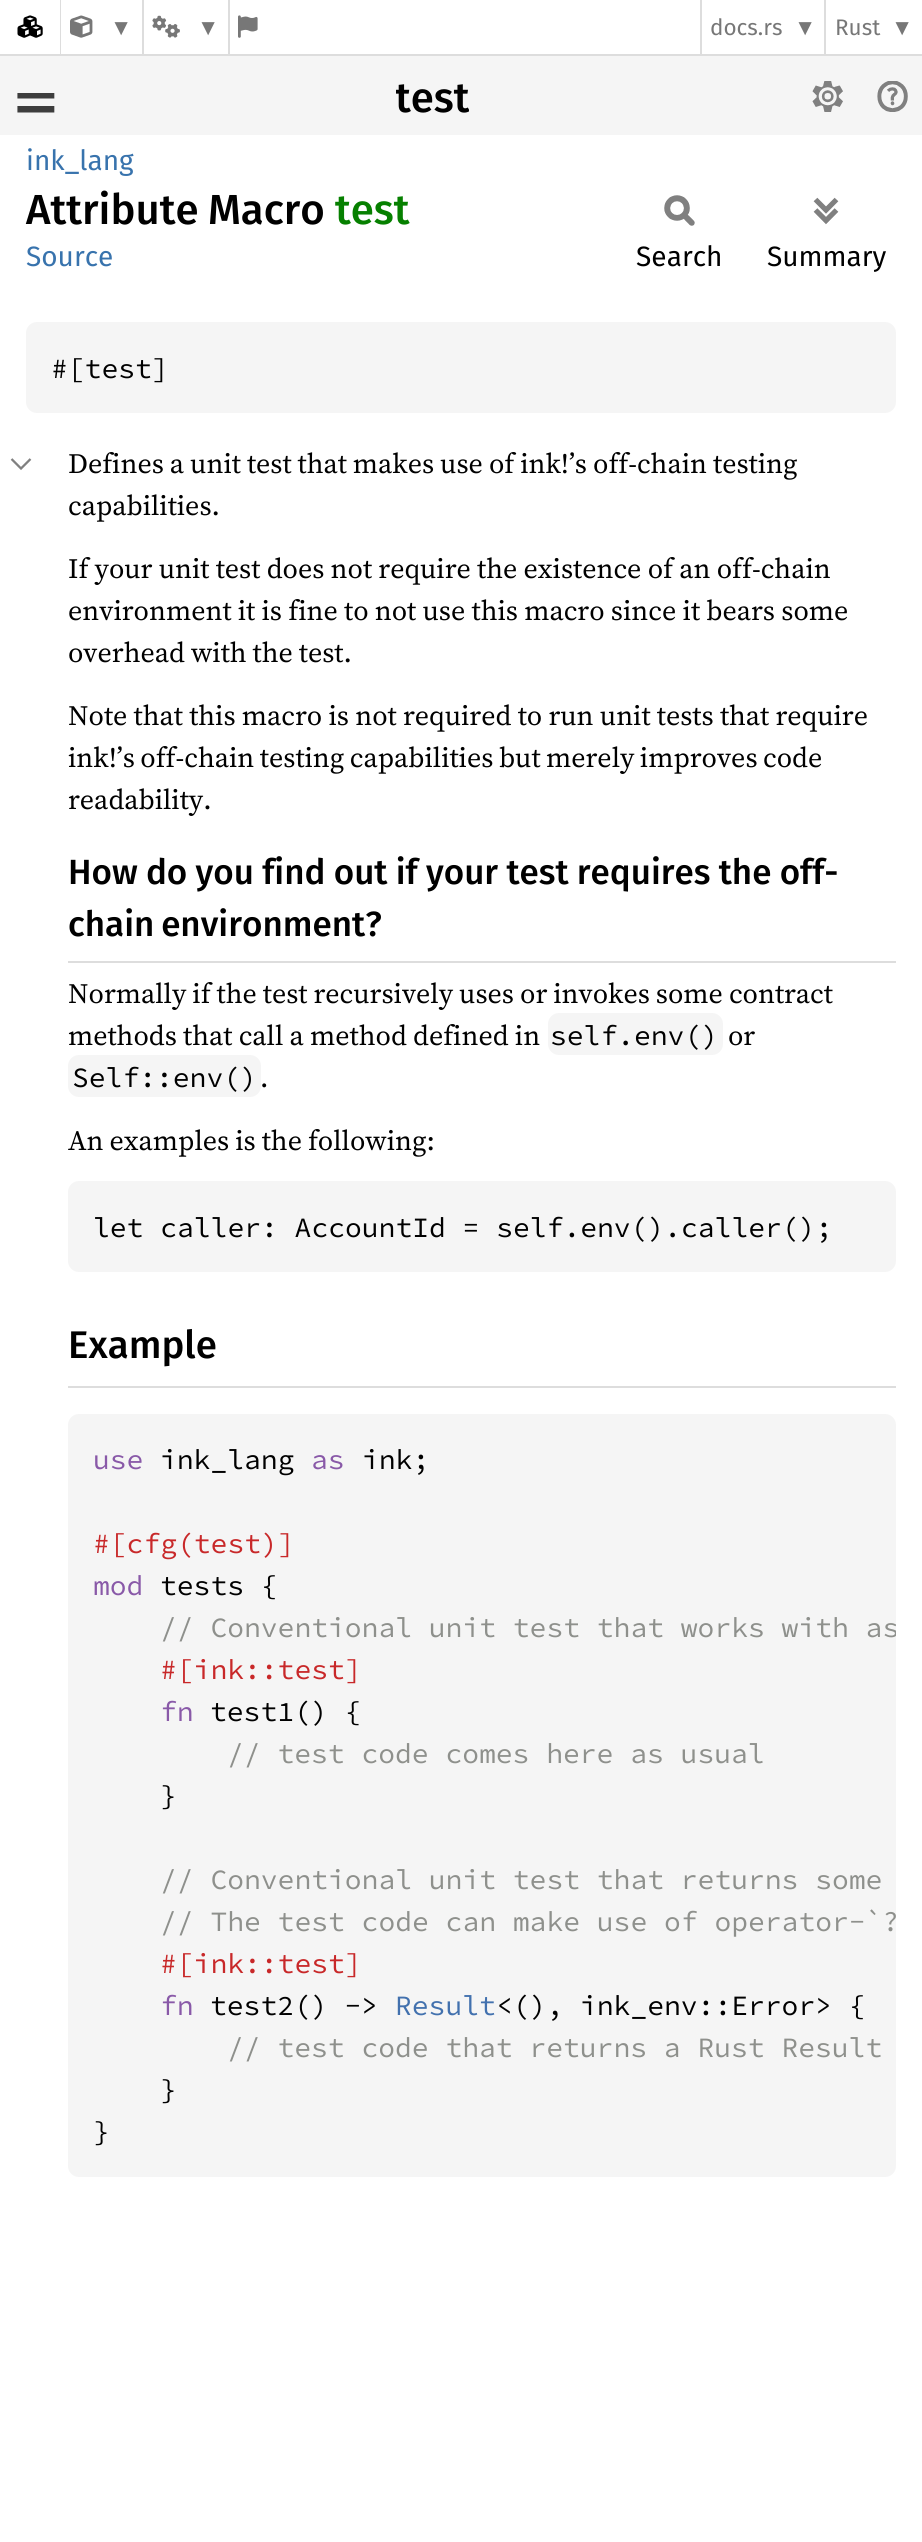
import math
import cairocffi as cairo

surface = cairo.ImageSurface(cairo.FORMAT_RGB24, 922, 2542)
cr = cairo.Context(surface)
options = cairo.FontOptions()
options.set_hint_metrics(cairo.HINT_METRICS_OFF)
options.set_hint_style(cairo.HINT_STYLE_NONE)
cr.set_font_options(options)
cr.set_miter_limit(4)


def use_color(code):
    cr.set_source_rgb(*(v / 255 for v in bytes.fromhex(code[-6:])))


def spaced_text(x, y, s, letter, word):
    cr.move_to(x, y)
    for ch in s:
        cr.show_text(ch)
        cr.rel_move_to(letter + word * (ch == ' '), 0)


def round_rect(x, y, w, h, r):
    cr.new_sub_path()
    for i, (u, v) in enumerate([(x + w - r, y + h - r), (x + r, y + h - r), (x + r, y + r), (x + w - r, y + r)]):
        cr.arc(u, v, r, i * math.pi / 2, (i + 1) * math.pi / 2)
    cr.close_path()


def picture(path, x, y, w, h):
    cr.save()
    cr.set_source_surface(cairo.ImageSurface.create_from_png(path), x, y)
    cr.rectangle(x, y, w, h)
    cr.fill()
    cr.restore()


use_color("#ffffff")
cr.paint()
use_color("#dddddd")
cr.rectangle(0, 54, 922, 2)
cr.fill()
picture("img1.png", 17, 15, 26, 23)
cr.rectangle(60, 0, 1, 54)
cr.fill()
picture("img2.png", 70, 15, 23, 23)
cr.select_font_face("Liberation Sans")
cr.set_font_size(22.5)
use_color("#777777")
cr.move_to(110, 35)
cr.show_text("▼")
use_color("#dddddd")
cr.rectangle(142, 0, 2, 54)
cr.fill()
picture("img3.png", 152, 15, 28, 23)
use_color("#777777")
cr.move_to(197, 35)
cr.show_text("▼")
use_color("#dddddd")
cr.rectangle(228, 0, 2, 54)
cr.fill()
picture("img4.png", 238, 15, 20, 23)
cr.rectangle(700, 0, 2, 54)
cr.fill()
cr.select_font_face("Fira Sans")
use_color("#777777")
cr.move_to(710, 35)
cr.show_text("docs.rs")
cr.select_font_face("Liberation Sans")
cr.move_to(794, 35)
cr.show_text("▼")
use_color("#dddddd")
cr.rectangle(824, 0, 2, 54)
cr.fill()
cr.select_font_face("Fira Sans")
use_color("#777777")
cr.move_to(835, 35)
cr.show_text("Rust")
cr.select_font_face("Liberation Sans")
cr.move_to(891, 35)
cr.show_text("▼")
use_color("#f5f5f5")
cr.rectangle(0, 56, 922, 79)
cr.fill()
picture("img5.png", 17, 93, 38, 20)
cr.save()
cr.rectangle(396, 67, 73, 57)
cr.clip()
cr.select_font_face("Fira Sans Medium")
cr.set_font_size(42)
use_color("#000000")
cr.move_to(395, 112)
cr.show_text("test")
cr.restore()
picture("img6.png", 812, 81, 31, 31)
picture("img7.png", 877, 81, 31, 31)
cr.select_font_face("Fira Sans")
cr.set_font_size(28)
use_color("#3873ad")
cr.move_to(26, 170)
cr.show_text("ink_lang")
cr.select_font_face("Fira Sans Medium")
cr.set_font_size(42)
use_color("#000000")
spaced_text(26, 224, "Attribute Macro", 0, -1)
use_color("#068000")
cr.move_to(335, 224)
cr.show_text("test")
cr.select_font_face("Fira Sans")
cr.set_font_size(28)
use_color("#3873ad")
cr.move_to(26, 266)
cr.show_text("Source")
picture("img8.png", 664, 195, 31, 31)
use_color("#000000")
cr.move_to(636, 266)
cr.show_text("Search")
picture("img9.png", 813, 197, 26, 28)
cr.move_to(767, 266)
cr.show_text("Summary")
use_color("#f5f5f5")
round_rect(26, 322, 870, 91, 11)
cr.fill()
cr.select_font_face("Source Code Pro")
use_color("#000000")
cr.move_to(51, 378)
cr.show_text("#[test]")
cr.new_path()
cr.move_to(11.5, 459)
cr.line_to(21, 468.5)
cr.line_to(30.5, 459)
use_color("#808080")
cr.set_line_width(2.3)
cr.stroke()
cr.select_font_face("Source Serif 4")
use_color("#000000")
spaced_text(68, 473, "Defines a unit test that makes use of ink!’s off-chain testing", 0, -0.5)
cr.move_to(68, 515)
cr.show_text("capabilities.")
spaced_text(68, 578, "If your unit test does not require the existence of an off-chain", 0, -0.25)
spaced_text(68, 620, "environment it is fine to not use this macro since it bears some", 0, -0.25)
spaced_text(68, 662, "overhead with the test.", 0, -0.5)
spaced_text(68, 725, "Note that this macro is not required to run unit tests that require", 0, -0.25)
spaced_text(68, 767, "ink!’s off-chain testing capabilities but merely improves code", 0, -1)
cr.move_to(68, 809)
cr.show_text("readability.")
use_color("#dddddd")
cr.rectangle(68, 961, 828, 2)
cr.fill()
cr.select_font_face("Fira Sans Medium")
cr.set_font_size(35)
use_color("#000000")
spaced_text(68, 884, "How do you find out if your test requires the off-", 0, -0.5)
spaced_text(68, 936, "chain environment?", 0, -2)
cr.select_font_face("Source Serif 4")
cr.set_font_size(28)
spaced_text(68, 1003, "Normally if the test recursively uses or invokes some contract", 0, -0.5)
spaced_text(68, 1045, "methods that call a method defined in", 0, -0.25)
use_color("#f5f5f5")
round_rect(548, 1013, 175, 42, 11)
cr.fill()
cr.select_font_face("Source Code Pro")
use_color("#000000")
cr.move_to(550, 1045)
cr.show_text("self.env()")
cr.select_font_face("Source Serif 4")
cr.move_to(728, 1045)
cr.show_text("or")
use_color("#f5f5f5")
round_rect(68, 1055, 193, 42, 11)
cr.fill()
cr.select_font_face("Source Code Pro")
use_color("#000000")
cr.move_to(72, 1087)
cr.show_text("Self::env()")
cr.select_font_face("Source Serif 4")
cr.move_to(260, 1087)
cr.show_text(".")
spaced_text(68, 1150, "An examples is the following:", 0, -0.5)
use_color("#f5f5f5")
round_rect(68, 1181, 828, 91, 11)
cr.fill()
cr.select_font_face("Source Code Pro")
use_color("#000000")
cr.move_to(93, 1237)
cr.show_text("let caller: AccountId = self.env().caller();")
use_color("#dddddd")
cr.rectangle(68, 1386, 828, 2)
cr.fill()
cr.select_font_face("Fira Sans Medium")
cr.set_font_size(38.5)
use_color("#000000")
cr.move_to(68, 1358)
cr.show_text("Example")
use_color("#f5f5f5")
round_rect(68, 1414, 828, 763, 11)
cr.fill()
cr.select_font_face("Source Code Pro")
cr.set_font_size(28)
use_color("#8959a8")
cr.move_to(93, 1469)
cr.show_text("use")
use_color("#000000")
cr.move_to(160, 1469)
cr.show_text("ink_lang")
use_color("#8959a8")
cr.move_to(311, 1469)
cr.show_text("as")
use_color("#000000")
cr.move_to(362, 1469)
cr.show_text("ink;")
use_color("#c82829")
cr.move_to(93, 1553)
cr.show_text("#[cfg(test)]")
use_color("#8959a8")
cr.move_to(93, 1595)
cr.show_text("mod")
use_color("#000000")
cr.move_to(160, 1595)
cr.show_text("tests {")
cr.save()
round_rect(68, 1414, 828, 763, 11)
cr.clip()
use_color("#8e908c")
cr.move_to(160, 1637)
cr.show_text("// Conventional unit test that works with as")
cr.restore()
use_color("#c82829")
cr.move_to(160, 1679)
cr.show_text("#[ink::test]")
use_color("#8959a8")
cr.move_to(160, 1721)
cr.show_text("fn")
use_color("#000000")
cr.move_to(210, 1721)
cr.show_text("test1() {")
use_color("#8e908c")
cr.move_to(227, 1763)
cr.show_text("// test code comes here as usual")
use_color("#000000")
cr.move_to(160, 1805)
cr.show_text("}")
use_color("#8e908c")
cr.move_to(160, 1889)
cr.show_text("// Conventional unit test that returns some")
cr.move_to(160, 1931)
cr.show_text("// The test code can make use of operator-`?")
use_color("#c82829")
cr.move_to(160, 1973)
cr.show_text("#[ink::test]")
use_color("#8959a8")
cr.move_to(160, 2015)
cr.show_text("fn")
use_color("#000000")
cr.move_to(210, 2015)
cr.show_text("test2() ->")
use_color("#4271ae")
cr.move_to(395, 2015)
cr.show_text("Result")
use_color("#000000")
cr.move_to(496, 2015)
cr.show_text("<(), ink_env::Error> {")
use_color("#8e908c")
cr.move_to(227, 2057)
cr.show_text("// test code that returns a Rust Result")
use_color("#000000")
cr.move_to(160, 2099)
cr.show_text("}")
cr.move_to(93, 2141)
cr.show_text("}")
surface.write_to_png("result.png")
